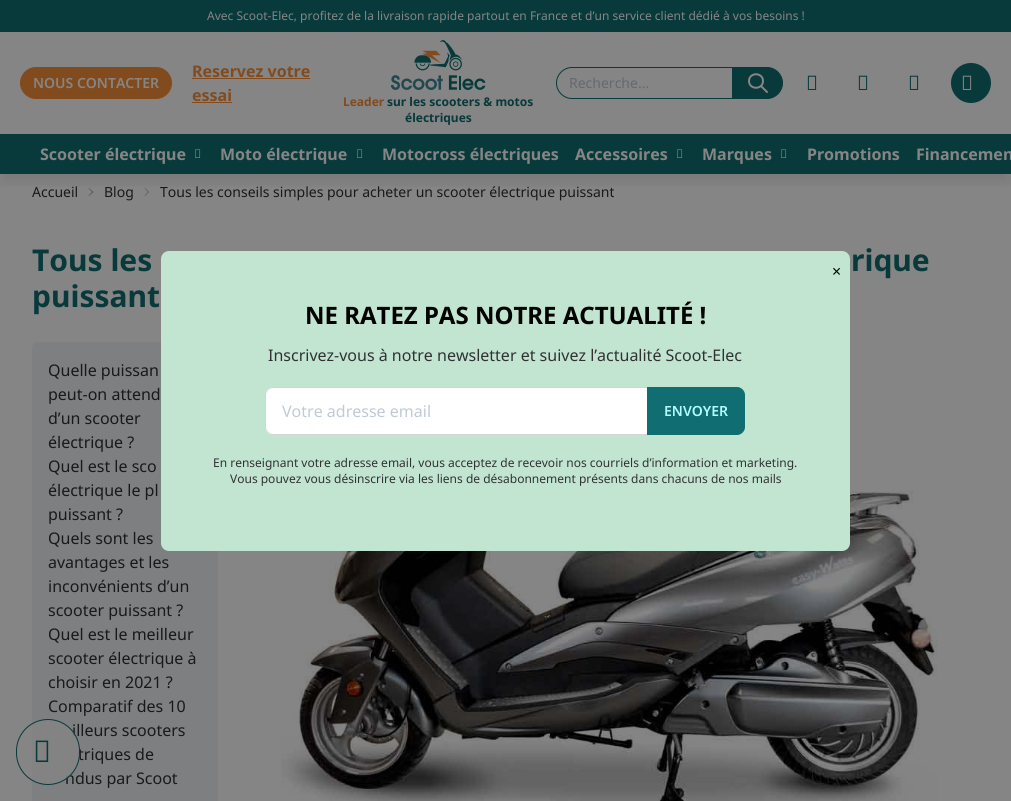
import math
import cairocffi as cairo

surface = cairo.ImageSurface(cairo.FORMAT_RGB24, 1011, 801)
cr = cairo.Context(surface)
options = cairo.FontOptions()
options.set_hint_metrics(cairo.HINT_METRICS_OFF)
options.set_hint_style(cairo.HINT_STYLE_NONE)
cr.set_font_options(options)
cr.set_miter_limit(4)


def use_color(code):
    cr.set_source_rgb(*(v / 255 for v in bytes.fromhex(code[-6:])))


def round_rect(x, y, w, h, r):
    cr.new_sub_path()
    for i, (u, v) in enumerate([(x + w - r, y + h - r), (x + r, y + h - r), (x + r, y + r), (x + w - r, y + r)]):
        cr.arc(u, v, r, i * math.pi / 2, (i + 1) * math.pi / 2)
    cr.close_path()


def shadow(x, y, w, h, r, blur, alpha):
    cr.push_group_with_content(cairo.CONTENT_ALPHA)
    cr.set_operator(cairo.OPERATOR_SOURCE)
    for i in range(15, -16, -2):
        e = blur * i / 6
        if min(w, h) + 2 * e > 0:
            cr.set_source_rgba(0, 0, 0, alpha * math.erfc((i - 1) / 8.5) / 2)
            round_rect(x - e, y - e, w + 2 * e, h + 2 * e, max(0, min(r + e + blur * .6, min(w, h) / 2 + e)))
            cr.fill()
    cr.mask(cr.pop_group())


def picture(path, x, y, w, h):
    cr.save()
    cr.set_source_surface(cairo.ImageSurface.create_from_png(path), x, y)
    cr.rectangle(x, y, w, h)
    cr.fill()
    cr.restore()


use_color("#858585")
cr.paint()
use_color("#5a5a5a")
cr.new_path()
cr.move_to(89, 188)
cr.line_to(93.5, 192)
cr.line_to(92.5, 192.5)
cr.line_to(88.5, 188.5)
cr.close_path()
cr.fill()
cr.select_font_face("Noto Sans")
cr.set_font_size(14)
use_color("#19191b")
cr.move_to(104, 197)
cr.show_text("Blog")
use_color("#5a5a5a")
cr.new_path()
cr.move_to(92.5, 191.5)
cr.line_to(93.5, 192)
cr.line_to(89, 196)
cr.line_to(88.5, 195.5)
cr.close_path()
cr.move_to(145, 188)
cr.line_to(149, 192)
cr.line_to(148.5, 192.5)
cr.line_to(144.5, 188.5)
cr.close_path()
cr.fill()
cr.new_path()
cr.move_to(148.5, 191.5)
cr.line_to(149, 192)
cr.line_to(145, 196)
cr.line_to(144.5, 195.5)
cr.close_path()
cr.fill()
cr.save()
cr.rectangle(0, 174, 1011, 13)
cr.clip()
use_color("#000000")
shadow(3, 45, 1005, 136, 0, 7.5, 0.1)
cr.restore()
use_color("#08393b")
cr.rectangle(0, 0, 1011, 32)
cr.fill()
cr.set_font_size(12)
use_color("#858585")
cr.move_to(207, 20)
cr.show_text("Avec Scoot-Elec, profitez de la livraison rapide partout en France et d’un service client dédié à vos besoins !")
use_color("#824b1d")
round_rect(20.5, 67.5, 151, 31, 15.5)
cr.fill_preserve()
cr.set_line_width(1)
cr.stroke()
cr.select_font_face("Noto Sans SemiBold")
cr.set_font_size(14)
use_color("#858585")
cr.move_to(33, 88)
cr.show_text("NOUS CONTACTER")
cr.select_font_face("Noto Sans", cairo.FONT_SLANT_NORMAL, cairo.FONT_WEIGHT_BOLD)
cr.set_font_size(16)
use_color("#824b1d")
cr.move_to(192, 77)
cr.show_text("Reservez votre")
cr.rectangle(192, 78, 118, 1)
cr.fill()
cr.move_to(192, 101)
cr.show_text("essai")
cr.rectangle(192, 102, 40, 1)
cr.fill()
cr.new_path()
cr.move_to(572, 67.5)
cr.line_to(732.5, 67.5)
cr.line_to(732.5, 98.5)
cr.line_to(572, 98.5)
cr.curve_to(563.5, 98.5, 556.5, 91.5, 556.5, 83)
cr.curve_to(556.5, 74.5, 563.5, 67.5, 572, 67.5)
cr.close_path()
use_color("#08393b")
cr.stroke()
cr.select_font_face("Noto Sans")
cr.set_font_size(14)
use_color("#636970")
cr.move_to(569, 88)
cr.show_text("Recherche...")
use_color("#08393b")
cr.new_path()
cr.move_to(733.5, 67.5)
cr.line_to(767, 67.5)
cr.curve_to(775.5, 67.5, 782.5, 74.5, 782.5, 83)
cr.curve_to(782.5, 91.5, 775.5, 98.5, 767, 98.5)
cr.line_to(733.5, 98.5)
cr.close_path()
cr.fill_preserve()
cr.stroke()
cr.new_path()
cr.move_to(767, 92)
cr.line_to(761, 86)
cr.move_to(763, 81)
cr.curve_to(763, 90, 749, 90, 749, 81)
cr.curve_to(749, 72, 763, 72, 763, 81)
cr.close_path()
use_color("#858585")
cr.set_line_width(2)
cr.set_line_cap(cairo.LINE_CAP_ROUND)
cr.set_line_join(cairo.LINE_JOIN_ROUND)
cr.stroke()
picture("img1.png", 807, 75, 10, 15)
picture("img1.png", 858, 75, 10, 15)
picture("img1.png", 909, 75, 10, 15)
use_color("#08393b")
cr.arc(971, 83, 20, 0, 2 * math.pi)
cr.fill()
picture("img2.png", 962, 75, 10, 15)
picture("img3.png", 390, 40, 96, 50)
cr.select_font_face("Noto Sans", cairo.FONT_SLANT_NORMAL, cairo.FONT_WEIGHT_BOLD)
cr.set_font_size(12)
use_color("#824b1d")
cr.move_to(343, 106)
cr.show_text("Leader")
use_color("#08393b")
cr.move_to(387, 106)
cr.show_text("sur les scooters & motos")
cr.move_to(405, 122)
cr.show_text("électriques")
cr.rectangle(0, 134, 1011, 40)
cr.fill()
cr.set_font_size(16)
use_color("#858585")
cr.move_to(40, 160)
cr.show_text("Scooter électrique")
picture("img4.png", 195, 149, 6, 9)
cr.move_to(220, 160)
cr.show_text("Moto électrique")
picture("img4.png", 357, 149, 6, 9)
cr.move_to(382, 160)
cr.show_text("Motocross électriques")
cr.move_to(575, 160)
cr.show_text("Accessoires")
picture("img4.png", 677, 149, 6, 9)
cr.move_to(702, 160)
cr.show_text("Marques")
picture("img4.png", 781, 149, 6, 9)
cr.move_to(807, 160)
cr.show_text("Promotions")
cr.move_to(916, 160)
cr.show_text("Financemen")
cr.select_font_face("Noto Sans")
cr.set_font_size(14)
use_color("#19191b")
cr.move_to(32, 197)
cr.show_text("Accueil")
cr.move_to(160, 197)
cr.show_text("Tous les conseils simples pour acheter un scooter électrique puissant")
cr.select_font_face("Noto Sans", cairo.FONT_SLANT_NORMAL, cairo.FONT_WEIGHT_BOLD)
cr.set_font_size(30)
use_color("#08393b")
cr.move_to(32, 271)
cr.show_text("Tous les")
cr.move_to(851, 271)
cr.show_text("rique")
cr.move_to(32, 307)
cr.show_text("puissant")
use_color("#7e7f80")
cr.new_path()
cr.move_to(38, 342)
cr.line_to(212, 342)
cr.curve_to(215.5, 342, 218, 344.5, 218, 348)
cr.line_to(218, 801)
cr.line_to(32, 801)
cr.line_to(32, 348)
cr.curve_to(32, 344.5, 34.5, 342, 38, 342)
cr.close_path()
cr.fill()
cr.select_font_face("Noto Sans")
cr.set_font_size(16)
use_color("#19191b")
cr.move_to(48, 376)
cr.show_text("Quelle puissan")
cr.move_to(48, 400)
cr.show_text("peut-on attend")
cr.move_to(48, 424)
cr.show_text("d’un scooter")
cr.move_to(48, 448)
cr.show_text("électrique ?")
cr.move_to(48, 472)
cr.show_text("Quel est le sco")
cr.move_to(48, 496)
cr.show_text("électrique le pl")
cr.move_to(48, 520)
cr.show_text("puissant ?")
cr.move_to(48, 544)
cr.show_text("Quels sont les")
cr.move_to(48, 568)
cr.show_text("avantages et les")
cr.move_to(48, 592)
cr.show_text("inconvénients d’un")
cr.move_to(48, 616)
cr.show_text("scooter puissant ?")
cr.move_to(48, 640)
cr.show_text("Quel est le meilleur")
cr.move_to(48, 664)
cr.show_text("scooter électrique à")
cr.move_to(48, 688)
cr.show_text("choisir en 2021 ?")
cr.move_to(48, 712)
cr.show_text("Comparatif des 10")
cr.move_to(72, 736)
cr.show_text("illeurs scooters")
cr.move_to(78, 760)
cr.show_text("triques de")
cr.move_to(65, 784)
cr.show_text("ndus par Scoot")
picture("img5.png", 281, 342, 657, 459)
use_color("#c1e5d1")
round_rect(161, 251, 689, 300, 8)
cr.fill()
use_color("#000000")
cr.move_to(832, 277)
cr.show_text("×")
cr.select_font_face("Noto Sans", cairo.FONT_SLANT_NORMAL, cairo.FONT_WEIGHT_BOLD)
cr.set_font_size(24)
cr.move_to(305, 324)
cr.show_text("NE RATEZ PAS NOTRE ACTUALITÉ !")
cr.select_font_face("Noto Sans")
cr.set_font_size(16)
use_color("#313134")
cr.move_to(268, 361)
cr.show_text("Inscrivez-vous à notre newsletter et suivez l’actualité Scoot-Elec")
use_color("#ffffff")
cr.new_path()
cr.move_to(273, 387)
cr.line_to(649, 387)
cr.line_to(649, 435)
cr.line_to(273, 435)
cr.curve_to(268.5, 435, 265, 431.5, 265, 427)
cr.line_to(265, 395)
cr.curve_to(265, 390.5, 268.5, 387, 273, 387)
cr.close_path()
cr.fill()
cr.new_path()
cr.move_to(273, 387.5)
cr.line_to(648.5, 387.5)
cr.line_to(648.5, 434.5)
cr.line_to(273, 434.5)
cr.curve_to(269, 434.5, 265.5, 431, 265.5, 427)
cr.line_to(265.5, 395)
cr.curve_to(265.5, 391, 269, 387.5, 273, 387.5)
cr.close_path()
cr.set_source_rgba(0.192, 0.192, 0.204, 0.2)
cr.set_line_width(1)
cr.set_line_cap(cairo.LINE_CAP_BUTT)
cr.set_line_join(cairo.LINE_JOIN_MITER)
cr.stroke()
use_color("#bfcad8")
cr.move_to(282, 417)
cr.show_text("Votre adresse email")
use_color("#106e72")
cr.new_path()
cr.move_to(647.5, 387.5)
cr.line_to(737, 387.5)
cr.curve_to(741, 387.5, 744.5, 391, 744.5, 395)
cr.line_to(744.5, 427)
cr.curve_to(744.5, 431, 741, 434.5, 737, 434.5)
cr.line_to(647.5, 434.5)
cr.close_path()
cr.fill_preserve()
cr.stroke()
cr.select_font_face("Noto Sans SemiBold")
cr.set_font_size(14)
use_color("#b3fcff")
cr.move_to(664, 416)
cr.show_text("ENVOYER")
cr.select_font_face("Noto Sans")
cr.set_font_size(12)
use_color("#313134")
cr.move_to(213, 467)
cr.show_text("En renseignant votre adresse email, vous acceptez de recevoir nos courriels d’information et marketing.")
cr.move_to(230, 483)
cr.show_text("Vous pouvez vous désinscrire via les liens de désabonnement présents dans chacuns de nos mails")
cr.set_source_rgba(0.522, 0.522, 0.522, 0.8)
round_rect(16.5, 719.5, 63, 65, 31.5)
cr.fill_preserve()
use_color("#08393b")
cr.stroke()
picture("img6.png", 35, 740, 14, 22)
surface.write_to_png("result.png")
